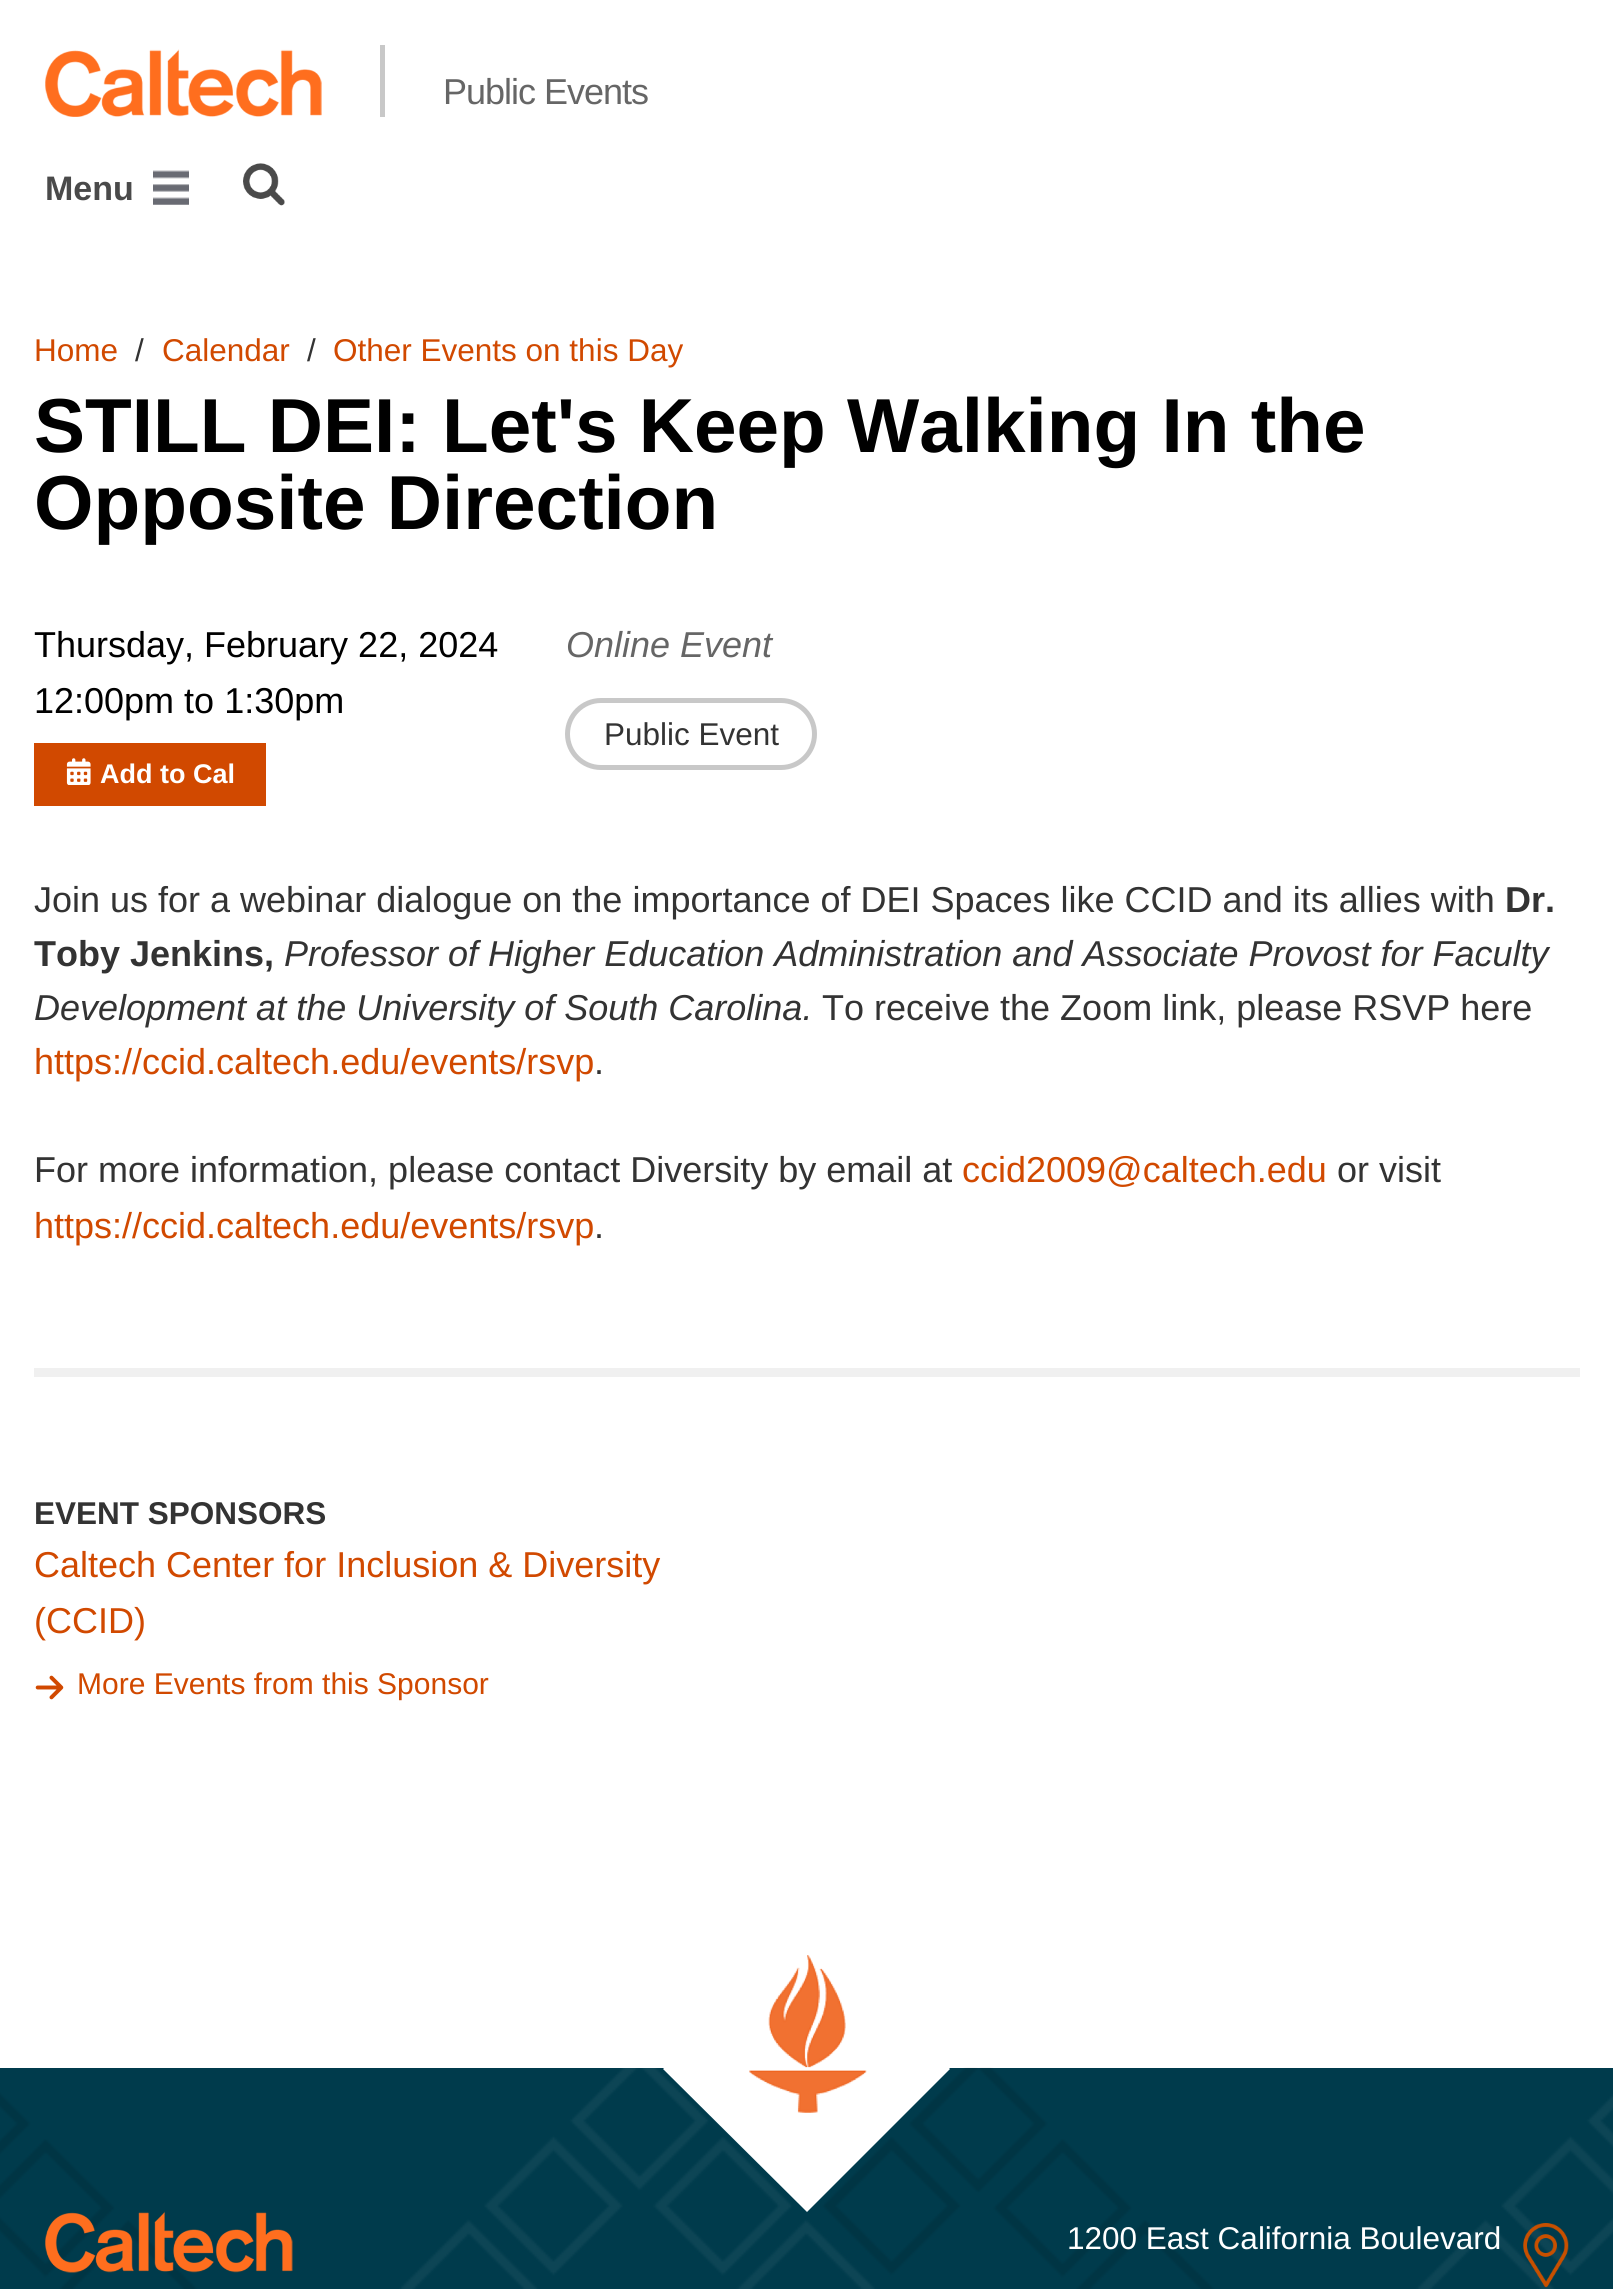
import math
import cairocffi as cairo

surface = cairo.ImageSurface(cairo.FORMAT_RGB24, 1613, 2289)
cr = cairo.Context(surface)
options = cairo.FontOptions()
options.set_hint_metrics(cairo.HINT_METRICS_OFF)
options.set_hint_style(cairo.HINT_STYLE_NONE)
cr.set_font_options(options)
cr.set_miter_limit(4)


def use_color(code):
    cr.set_source_rgb(*(v / 255 for v in bytes.fromhex(code[-6:])))


def spaced_text(x, y, s, letter, word):
    cr.move_to(x, y)
    for ch in s:
        cr.show_text(ch)
        cr.rel_move_to(letter + word * (ch == ' '), 0)


def round_rect(x, y, w, h, r):
    cr.new_sub_path()
    for i, (u, v) in enumerate([(x + w - r, y + h - r), (x + r, y + h - r), (x + r, y + r), (x + w - r, y + r)]):
        cr.arc(u, v, r, i * math.pi / 2, (i + 1) * math.pi / 2)
    cr.close_path()


def picture(path, x, y, w, h):
    cr.save()
    cr.set_source_surface(cairo.ImageSurface.create_from_png(path), x, y)
    cr.rectangle(x, y, w, h)
    cr.fill()
    cr.restore()


use_color("#ffffff")
cr.paint()
picture("img1.png", 45, 49, 277, 68)
use_color("#c8c8c8")
cr.rectangle(380, 45, 5, 72)
cr.fill()
cr.select_font_face("Liberation Sans")
cr.set_font_size(36)
use_color("#666666")
spaced_text(443, 104, "Public Events", -1, 0)
cr.select_font_face("Liberation Sans", cairo.FONT_SLANT_NORMAL, cairo.FONT_WEIGHT_BOLD)
cr.set_font_size(34)
use_color("#4a4a4a")
cr.move_to(45, 200)
cr.show_text("Menu")
picture("img2.png", 153, 170, 36, 35)
picture("img3.png", 243, 163, 42, 43)
cr.select_font_face("Liberation Sans")
cr.set_font_size(31.5)
use_color("#d14900")
cr.move_to(34, 361)
cr.show_text("Home")
use_color("#333333")
cr.move_to(135, 361)
cr.show_text("/")
use_color("#d14900")
cr.move_to(162, 361)
cr.show_text("Calendar")
use_color("#333333")
cr.move_to(307, 361)
cr.show_text("/")
use_color("#d14900")
cr.move_to(333, 361)
cr.show_text("Other Events on this Day")
cr.select_font_face("Liberation Sans", cairo.FONT_SLANT_NORMAL, cairo.FONT_WEIGHT_BOLD)
cr.set_font_size(76.5)
use_color("#000000")
cr.move_to(34, 452)
cr.show_text("STILL DEI: Let's Keep Walking In the")
cr.move_to(34, 529)
cr.show_text("Opposite Direction")
cr.select_font_face("Liberation Sans")
cr.set_font_size(36)
cr.move_to(34, 657)
cr.show_text("Thursday, February 22, 2024")
cr.move_to(34, 713)
cr.show_text("12:00pm to 1:30pm")
use_color("#d14900")
cr.rectangle(34, 743, 232, 63)
cr.fill()
picture("img4.png", 66, 758, 25, 27)
cr.select_font_face("Liberation Sans", cairo.FONT_SLANT_NORMAL, cairo.FONT_WEIGHT_BOLD)
cr.set_font_size(27)
use_color("#ffffff")
cr.move_to(100, 783)
cr.show_text("Add to Cal")
cr.select_font_face("Liberation Sans", cairo.FONT_SLANT_ITALIC)
cr.set_font_size(36)
use_color("#666666")
cr.move_to(566, 657)
cr.show_text("Online Event")
round_rect(567.5, 700.5, 247, 67, 33.5)
use_color("#c8c8c8")
cr.set_line_width(5)
cr.stroke()
cr.select_font_face("Liberation Sans")
cr.set_font_size(31.5)
use_color("#333333")
cr.move_to(604, 745)
cr.show_text("Public Event")
cr.set_font_size(36)
cr.move_to(34, 912)
cr.show_text("Join us for a webinar dialogue on the importance of DEI Spaces like CCID and its allies with")
cr.select_font_face("Liberation Sans", cairo.FONT_SLANT_NORMAL, cairo.FONT_WEIGHT_BOLD)
cr.move_to(1505, 912)
cr.show_text("Dr.")
cr.move_to(34, 966)
cr.show_text("Toby Jenkins,")
cr.select_font_face("Liberation Sans", cairo.FONT_SLANT_ITALIC)
cr.move_to(284, 966)
cr.show_text("Professor of Higher Education Administration and Associate Provost for Faculty")
cr.move_to(34, 1020)
cr.show_text("Development at the University of South Carolina.")
cr.select_font_face("Liberation Sans")
cr.move_to(822, 1020)
cr.show_text("To receive the Zoom link, please RSVP here")
use_color("#d14900")
cr.move_to(34, 1074)
cr.show_text("https://ccid.caltech.edu/events/rsvp")
use_color("#333333")
cr.move_to(594, 1074)
cr.show_text(".")
cr.move_to(34, 1182)
cr.show_text("For more information, please contact Diversity by email at")
use_color("#d14900")
cr.move_to(962, 1182)
cr.show_text("ccid2009@caltech.edu")
use_color("#333333")
cr.move_to(1337, 1182)
cr.show_text("or visit")
use_color("#d14900")
cr.move_to(34, 1238)
cr.show_text("https://ccid.caltech.edu/events/rsvp")
use_color("#333333")
cr.move_to(594, 1238)
cr.show_text(".")
use_color("#f0f0f0")
cr.rectangle(34, 1368, 1546, 9)
cr.fill()
cr.select_font_face("Liberation Sans", cairo.FONT_SLANT_NORMAL, cairo.FONT_WEIGHT_BOLD)
cr.set_font_size(31.5)
use_color("#333333")
cr.move_to(34, 1524)
cr.show_text("EVENT SPONSORS")
cr.select_font_face("Liberation Sans")
cr.set_font_size(36)
use_color("#d14900")
cr.move_to(34, 1577)
cr.show_text("Caltech Center for Inclusion & Diversity")
cr.move_to(34, 1633)
cr.show_text("(CCID)")
picture("img5.png", 35, 1675, 29, 25)
cr.set_font_size(30)
cr.move_to(77, 1694)
cr.show_text("More Events from this Sponsor")
use_color("#003b4c")
cr.rectangle(0, 2068, 1613, 221)
cr.fill()
picture("img6.png", 0, 2067, 1613, 222)
use_color("#ffffff")
cr.new_path()
cr.move_to(807, 1926)
cr.line_to(950, 2069)
cr.line_to(807, 2212)
cr.line_to(663, 2069)
cr.close_path()
cr.fill()
picture("img7.png", 749, 1955, 118, 158)
picture("img8.png", 45, 2211, 248, 62)
cr.set_font_size(31.5)
cr.move_to(1067, 2249)
cr.show_text("1200 East California Boulevard")
picture("img9.png", 1523, 2223, 46, 65)
surface.write_to_png("result.png")
